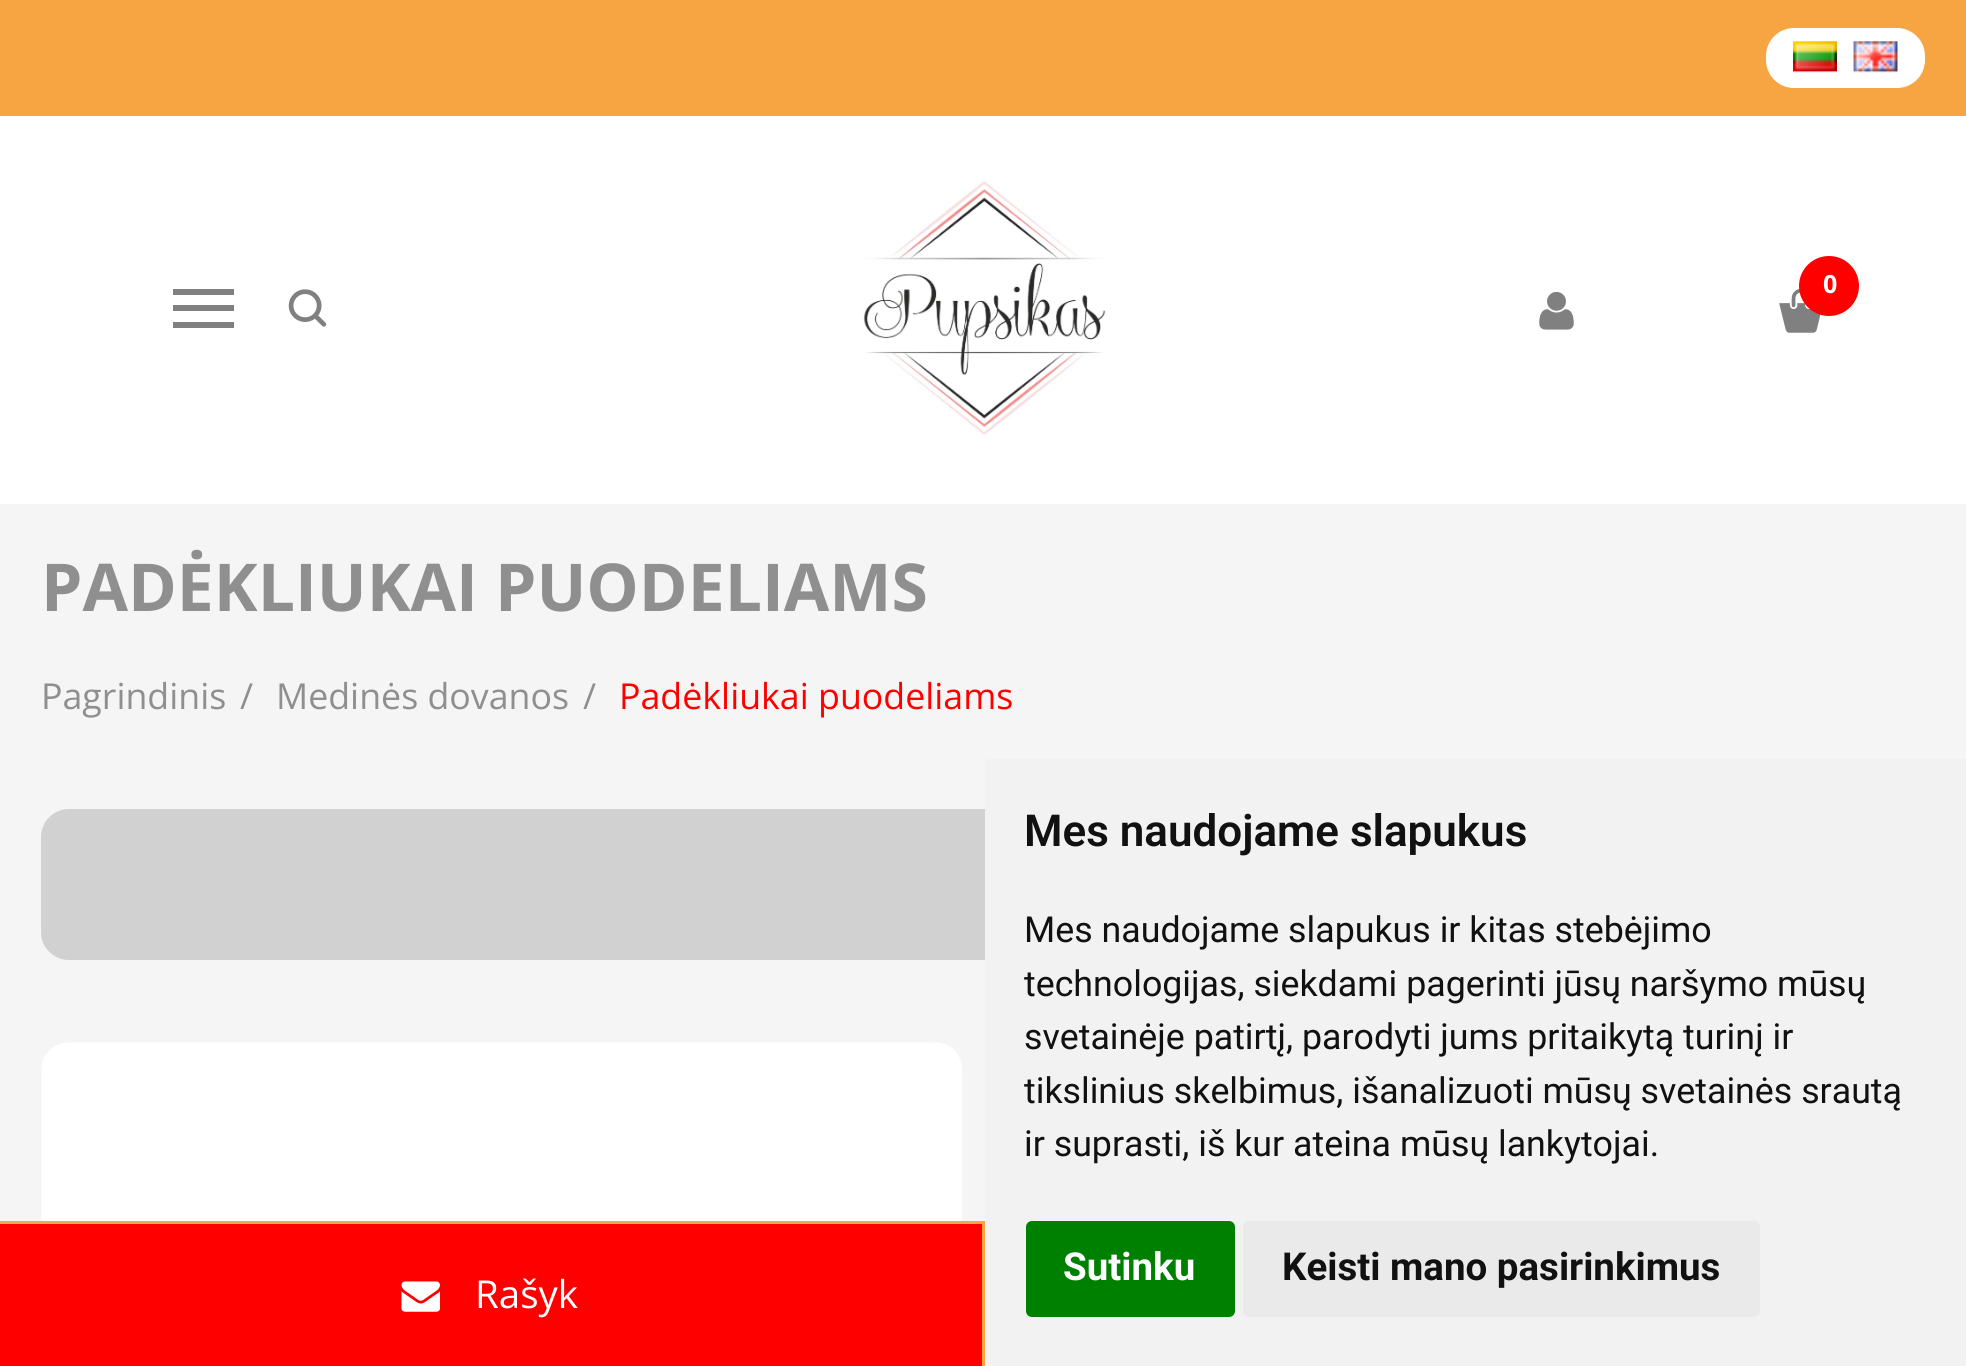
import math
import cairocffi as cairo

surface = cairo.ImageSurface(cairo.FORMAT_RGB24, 1966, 1366)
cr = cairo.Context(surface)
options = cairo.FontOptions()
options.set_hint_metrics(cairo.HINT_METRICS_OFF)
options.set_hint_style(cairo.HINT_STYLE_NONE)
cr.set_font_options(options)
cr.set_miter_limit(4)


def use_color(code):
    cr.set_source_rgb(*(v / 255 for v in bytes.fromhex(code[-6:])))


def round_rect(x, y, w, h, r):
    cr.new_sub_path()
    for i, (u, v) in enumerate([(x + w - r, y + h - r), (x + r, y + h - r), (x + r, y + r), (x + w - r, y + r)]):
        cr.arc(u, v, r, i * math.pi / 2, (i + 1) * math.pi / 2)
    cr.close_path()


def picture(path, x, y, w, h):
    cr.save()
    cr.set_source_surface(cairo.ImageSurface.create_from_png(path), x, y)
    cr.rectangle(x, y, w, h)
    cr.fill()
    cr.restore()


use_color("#f5f5f5")
cr.paint()
use_color("#f7a542")
cr.rectangle(0, 0, 1966, 116)
cr.fill()
use_color("#ffffff")
round_rect(1766, 28, 159, 60, 28)
cr.fill()
picture("img1.png", 1793, 41, 44, 32)
picture("img2.png", 1853, 41, 45, 32)
cr.rectangle(0, 116, 1966, 388)
cr.fill()
picture("img3.png", 863, 181, 243, 254)
picture("img4.png", 1779, 288, 42, 45)
use_color("#ff0000")
cr.arc(1829, 286, 30, 0, 2 * math.pi)
cr.fill()
cr.select_font_face("Open Sans", cairo.FONT_SLANT_NORMAL, cairo.FONT_WEIGHT_BOLD)
cr.set_font_size(25)
use_color("#ffffff")
cr.move_to(1823, 293)
cr.show_text("0")
picture("img5.png", 1539, 291, 35, 39)
use_color("#808080")
cr.rectangle(173, 289, 61, 6)
cr.fill()
cr.rectangle(173, 305, 61, 6)
cr.fill()
cr.rectangle(173, 322, 61, 6)
cr.fill()
picture("img6.png", 288, 289, 39, 38)
cr.set_font_size(66)
use_color("#8f8f8f")
cr.move_to(41, 611)
cr.show_text("PADĖKLIUKAI PUODELIAMS")
cr.select_font_face("Open Sans")
cr.set_font_size(35.75)
cr.move_to(41, 709)
cr.show_text("Pagrindinis")
cr.move_to(240, 709)
cr.show_text("/")
cr.move_to(276, 709)
cr.show_text("Medinės dovanos")
cr.move_to(583, 709)
cr.show_text("/")
use_color("#ff0000")
cr.move_to(619, 709)
cr.show_text("Padėkliukai puodeliams")
use_color("#d1d1d1")
round_rect(41, 809, 1884, 151, 28)
cr.fill()
picture("img7.png", 41, 1042, 921, 179)
use_color("#f2f2f2")
cr.rectangle(985, 759, 981, 607)
cr.fill()
cr.select_font_face("Roboto SemiBold")
cr.set_font_size(44)
use_color("#111111")
cr.move_to(1024, 846)
cr.show_text("Mes naudojame slapukus")
cr.select_font_face("Roboto")
cr.set_font_size(35.75)
cr.move_to(1024, 942)
cr.show_text("Mes naudojame slapukus ir kitas stebėjimo")
cr.move_to(1024, 996)
cr.show_text("technologijas, siekdami pagerinti jūsų naršymo mūsų")
cr.move_to(1024, 1049)
cr.show_text("svetainėje patirtį, parodyti jums pritaikytą turinį ir")
cr.move_to(1024, 1103)
cr.show_text("tikslinius skelbimus, išanalizuoti mūsų svetainės srautą")
cr.move_to(1024, 1156)
cr.show_text("ir suprasti, iš kur ateina mūsų lankytojai.")
use_color("#008000")
round_rect(1026, 1221, 209, 96, 6)
cr.fill()
cr.select_font_face("Roboto", cairo.FONT_SLANT_NORMAL, cairo.FONT_WEIGHT_BOLD)
cr.set_font_size(38.5)
use_color("#ffffff")
cr.move_to(1063, 1280)
cr.show_text("Sutinku")
use_color("#eaeaea")
round_rect(1243, 1221, 517, 96, 6)
cr.fill()
use_color("#111111")
cr.move_to(1282, 1280)
cr.show_text("Keisti mano pasirinkimus")
use_color("#ff0000")
cr.rectangle(0, 1224, 982, 142)
cr.fill()
use_color("#f7a542")
cr.rectangle(0, 1221, 985, 3)
cr.fill()
cr.rectangle(982, 1224, 3, 142)
cr.fill()
picture("img8.png", 401, 1281, 39, 31)
cr.select_font_face("Open Sans")
use_color("#ffffff")
cr.move_to(475, 1308)
cr.show_text("Rašyk")
surface.write_to_png("result.png")
